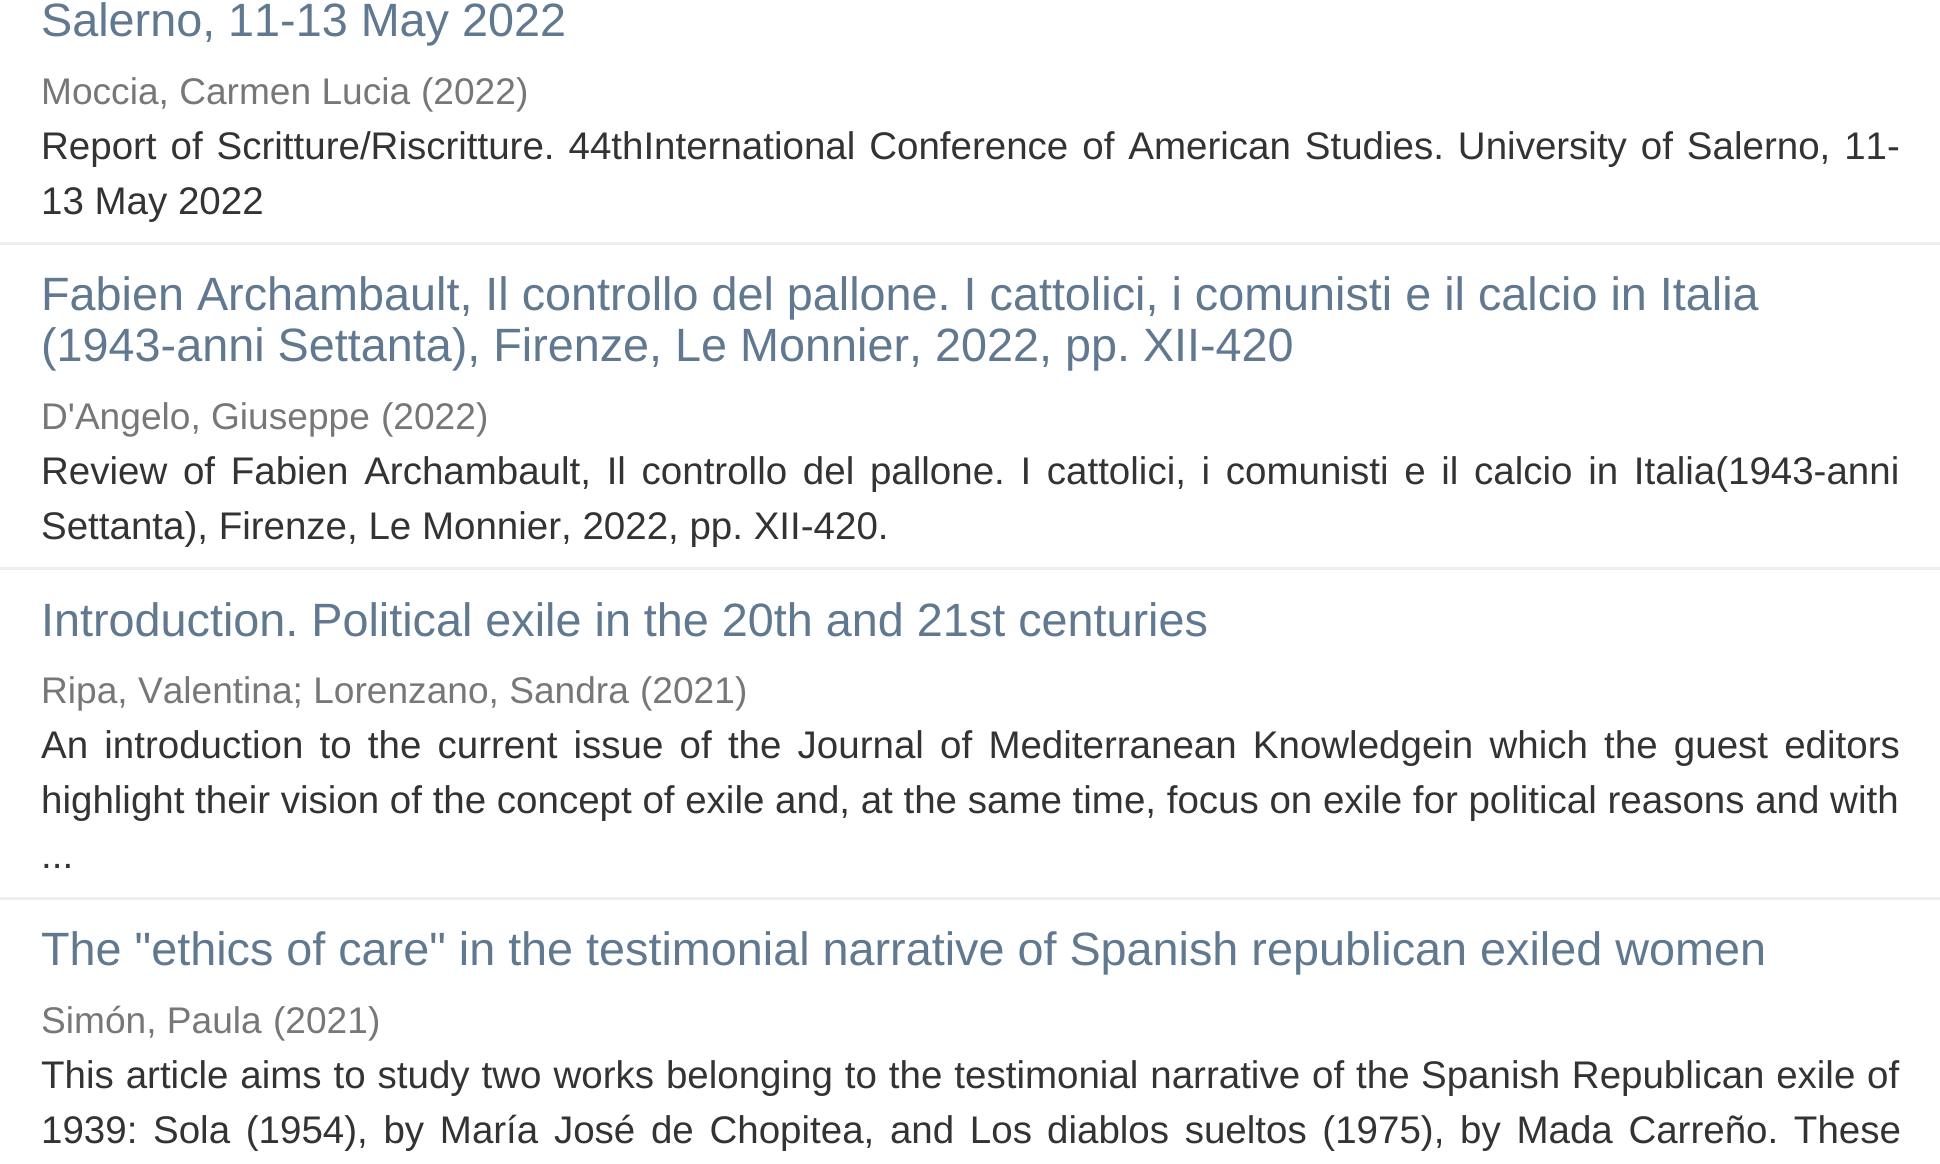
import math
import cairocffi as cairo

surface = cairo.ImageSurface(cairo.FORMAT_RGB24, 1940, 1164)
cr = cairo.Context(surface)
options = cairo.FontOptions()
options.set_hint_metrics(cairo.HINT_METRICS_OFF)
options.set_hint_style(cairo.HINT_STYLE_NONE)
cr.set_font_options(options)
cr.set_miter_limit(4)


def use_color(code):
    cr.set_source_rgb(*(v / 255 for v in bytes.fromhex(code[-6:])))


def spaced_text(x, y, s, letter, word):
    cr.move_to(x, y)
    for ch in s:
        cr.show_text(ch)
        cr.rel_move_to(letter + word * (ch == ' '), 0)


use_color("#ffffff")
cr.paint()
use_color("#eeeeee")
cr.rectangle(0, 242, 1940, 3)
cr.fill()
cr.select_font_face("Liberation Sans")
cr.set_font_size(46.75)
use_color("#607890")
cr.move_to(41, 36)
cr.show_text("Salerno, 11-13 May 2022")
cr.set_font_size(37.1)
use_color("#777777")
cr.move_to(41, 104)
cr.show_text("Moccia, Carmen Lucia")
cr.move_to(421, 104)
cr.show_text("(2022)")
cr.set_font_size(38.5)
use_color("#333333")
spaced_text(41, 159, "Report of Scritture/Riscritture. 44thInternational Conference of American Studies. University of Salerno, 11-", 0, 3.25)
cr.move_to(41, 214)
cr.show_text("13 May 2022")
use_color("#eeeeee")
cr.rectangle(0, 567, 1940, 3)
cr.fill()
cr.set_font_size(46.75)
use_color("#607890")
cr.move_to(41, 310)
cr.show_text("Fabien Archambault, Il controllo del pallone. I cattolici, i comunisti e il calcio in Italia")
cr.move_to(41, 361)
cr.show_text("(1943-anni Settanta), Firenze, Le Monnier, 2022, pp. XII-420")
cr.set_font_size(37.1)
use_color("#777777")
cr.move_to(41, 429)
cr.show_text("D'Angelo, Giuseppe")
cr.move_to(381, 429)
cr.show_text("(2022)")
cr.set_font_size(38.5)
use_color("#333333")
spaced_text(41, 484, "Review of Fabien Archambault, Il controllo del pallone. I cattolici, i comunisti e il calcio in Italia(1943-anni", 0, 5)
cr.move_to(41, 539)
cr.show_text("Settanta), Firenze, Le Monnier, 2022, pp. XII-420.")
use_color("#eeeeee")
cr.rectangle(0, 897, 1940, 3)
cr.fill()
cr.set_font_size(46.75)
use_color("#607890")
cr.move_to(41, 636)
cr.show_text("Introduction. Political exile in the 20th and 21st centuries")
cr.set_font_size(37.1)
use_color("#777777")
cr.move_to(41, 703)
cr.show_text("Ripa, Valentina; Lorenzano, Sandra")
cr.move_to(640, 703)
cr.show_text("(2021)")
cr.set_font_size(38.5)
use_color("#333333")
spaced_text(41, 758, "An introduction to the current issue of the Journal of Mediterranean Knowledgein which the guest editors", 0, 5.5)
cr.move_to(41, 813)
cr.show_text("highlight their vision of the concept of exile and, at the same time, focus on exile for political reasons and with")
cr.move_to(41, 868)
cr.show_text("...")
cr.set_font_size(46.75)
use_color("#607890")
cr.move_to(41, 965)
cr.show_text("The \"ethics of care\" in the testimonial narrative of Spanish republican exiled women")
cr.set_font_size(37.1)
use_color("#777777")
cr.move_to(41, 1033)
cr.show_text("Simón, Paula")
cr.move_to(273, 1033)
cr.show_text("(2021)")
cr.set_font_size(38.5)
use_color("#333333")
spaced_text(41, 1088, "This article aims to study two works belonging to the testimonial narrative of the", 0, 1.25)
spaced_text(1421, 1088, "Spanish Republican exile of", 0, 1)
spaced_text(41, 1143, "1939: Sola (1954), by María José de Chopitea, and Los", 0, 5)
spaced_text(1047, 1143, "diablos sueltos (1975), by Mada Carreño. These", 0, 5)
surface.write_to_png("result.png")
